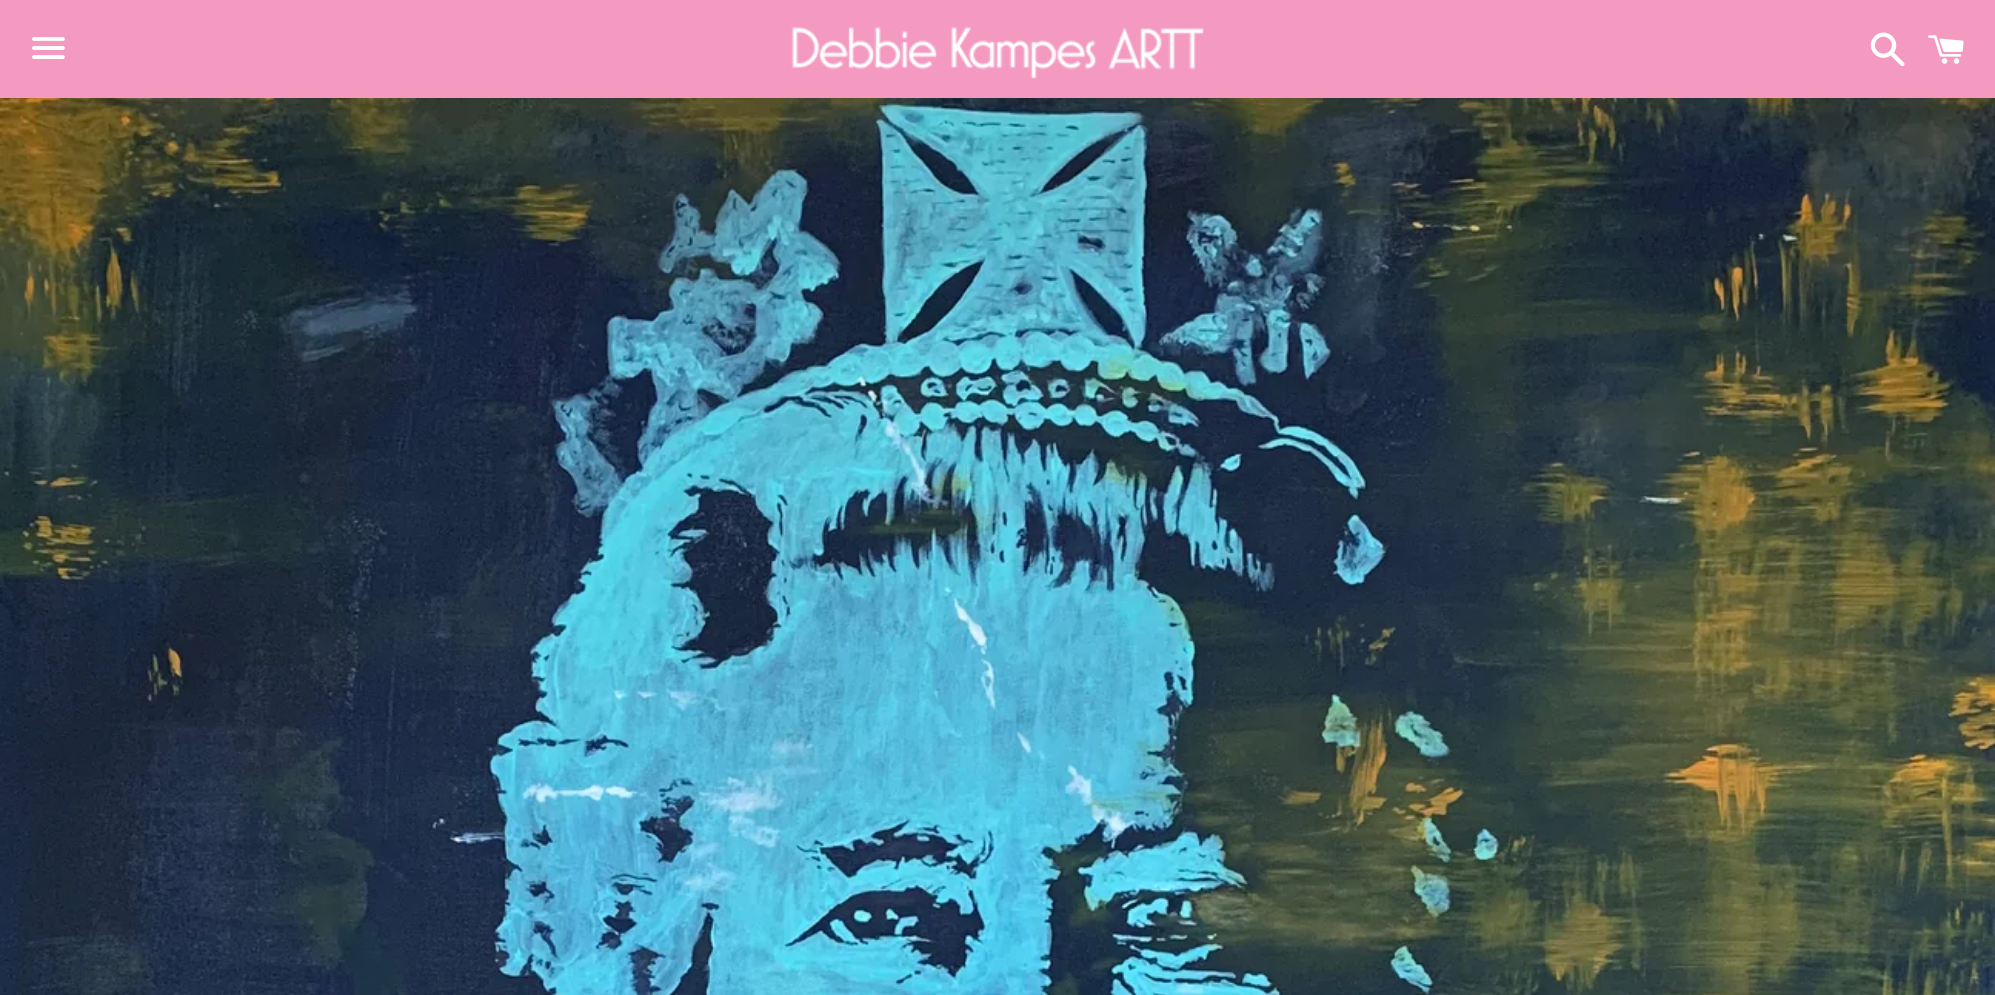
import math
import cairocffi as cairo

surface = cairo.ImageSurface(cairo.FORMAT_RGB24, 1995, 995)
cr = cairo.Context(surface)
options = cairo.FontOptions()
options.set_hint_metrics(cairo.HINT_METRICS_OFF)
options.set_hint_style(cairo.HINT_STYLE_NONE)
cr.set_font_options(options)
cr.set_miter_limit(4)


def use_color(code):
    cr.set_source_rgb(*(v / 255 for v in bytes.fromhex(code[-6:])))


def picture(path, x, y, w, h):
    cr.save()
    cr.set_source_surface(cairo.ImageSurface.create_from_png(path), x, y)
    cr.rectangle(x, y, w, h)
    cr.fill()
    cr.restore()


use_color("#ffffff")
cr.paint()
use_color("#f49ac1")
cr.rectangle(0, 0, 1995, 98)
cr.fill()
picture("img1.png", 32, 37, 33, 22)
picture("img2.png", 791, 26, 413, 53)
picture("img3.png", 1870, 32, 35, 35)
picture("img4.png", 1928, 35, 36, 29)
picture("img5.png", 0, 98, 1995, 897)
surface.write_to_png("result.png")
